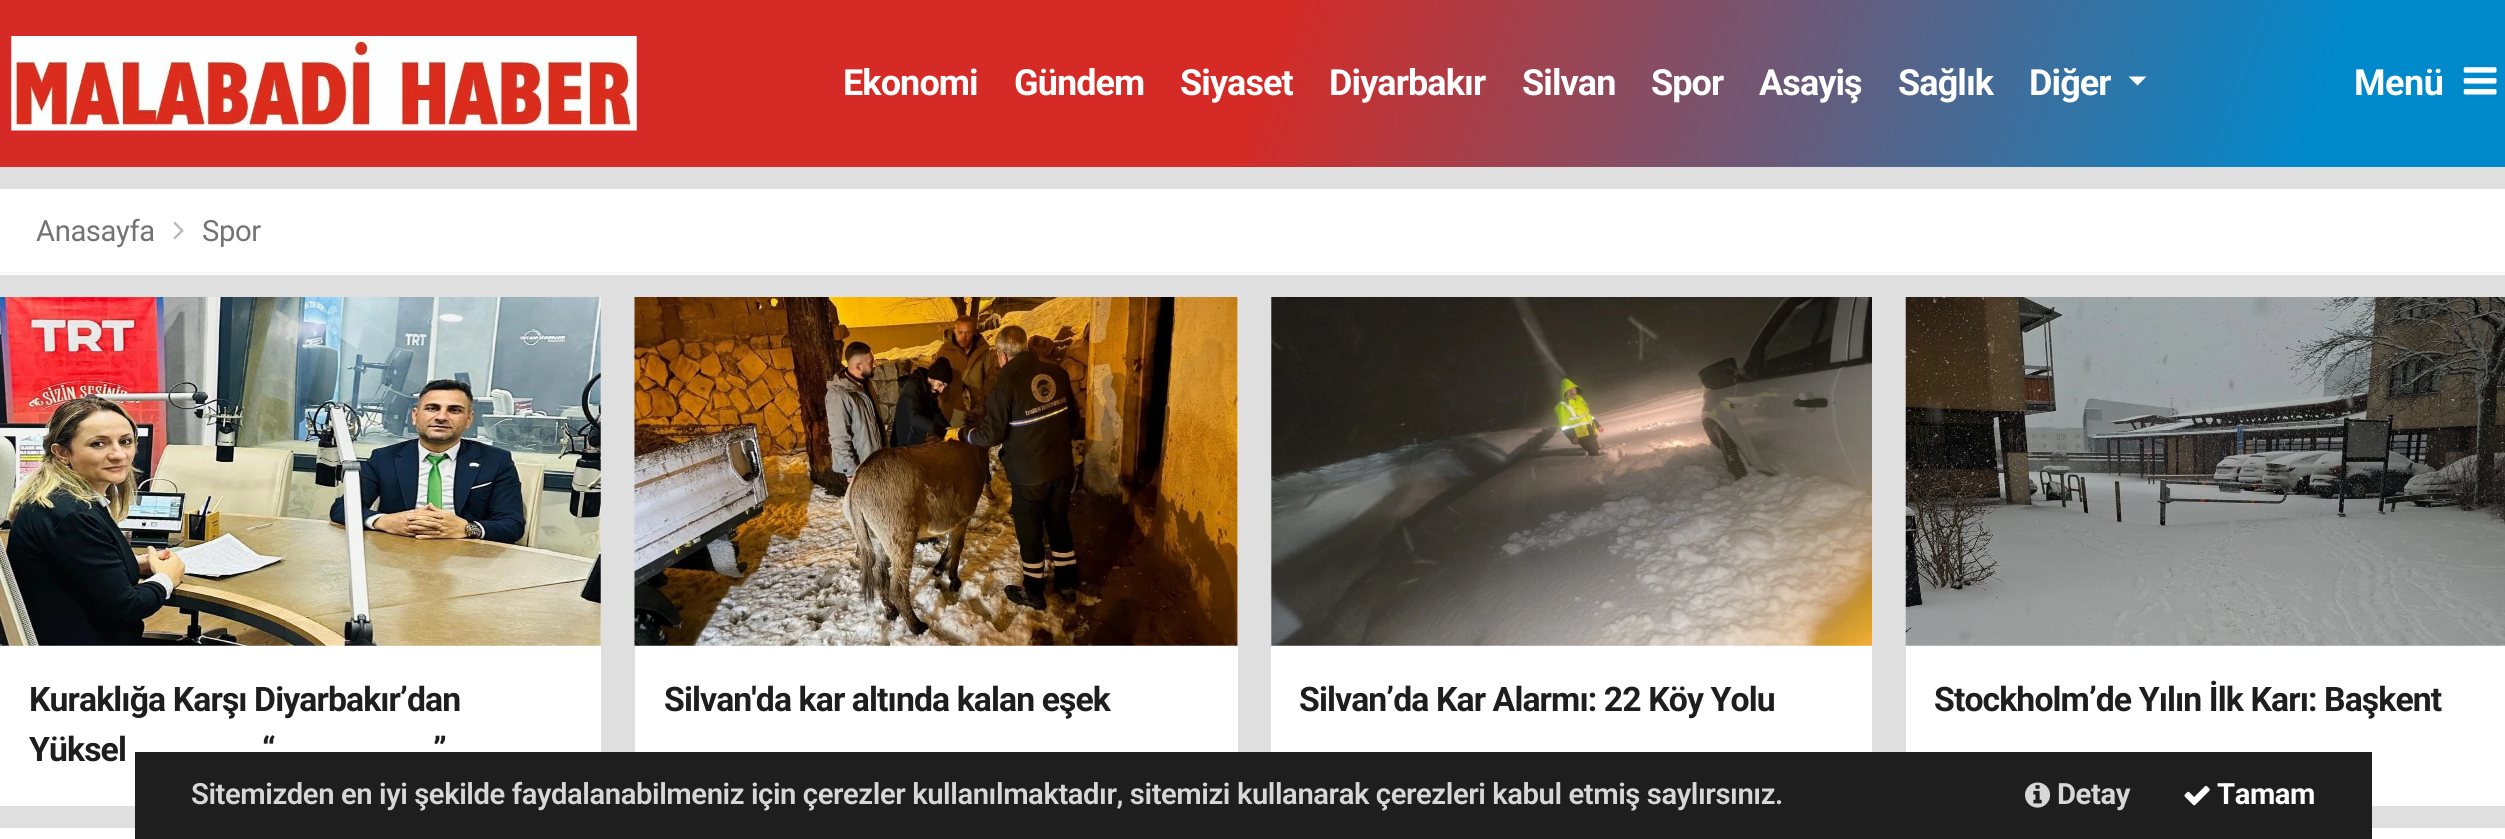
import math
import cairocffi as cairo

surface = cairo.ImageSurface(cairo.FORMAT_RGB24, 2505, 839)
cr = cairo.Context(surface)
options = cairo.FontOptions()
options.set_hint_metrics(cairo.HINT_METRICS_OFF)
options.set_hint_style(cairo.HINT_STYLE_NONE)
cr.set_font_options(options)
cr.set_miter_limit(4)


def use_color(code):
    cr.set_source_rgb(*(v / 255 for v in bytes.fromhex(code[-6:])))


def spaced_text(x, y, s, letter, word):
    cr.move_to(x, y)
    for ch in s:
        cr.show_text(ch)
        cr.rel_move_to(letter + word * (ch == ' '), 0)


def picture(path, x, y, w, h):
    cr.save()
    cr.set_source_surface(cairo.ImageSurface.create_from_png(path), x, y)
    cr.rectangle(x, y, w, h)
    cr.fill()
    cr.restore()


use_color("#dfdfdf")
cr.paint()
gradient = cairo.LinearGradient(115, -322, 2392, 489)
gradient.add_color_stop_rgba(0.5, 0.839, 0.165, 0.149, 1)
gradient.add_color_stop_rgba(0.92, 0, 0.537, 0.796, 1)
cr.set_source(gradient)
cr.rectangle(0, 0, 2505, 167)
cr.fill()
picture("img1.png", 11, 36, 626, 95)
cr.select_font_face("Roboto", cairo.FONT_SLANT_NORMAL, cairo.FONT_WEIGHT_BOLD)
cr.set_font_size(36)
use_color("#ffffff")
spaced_text(843, 95, "Ekonomi", -0.9, 0)
spaced_text(1014, 95, "Gündem", -0.9, 0)
spaced_text(1180, 95, "Siyaset", -0.9, 0)
spaced_text(1329, 95, "Diyarbakır", -0.9, 0)
spaced_text(1522, 95, "Silvan", -0.9, 0)
spaced_text(1651, 95, "Spor", -0.9, 0)
spaced_text(1759, 95, "Asayiş", -0.9, 0)
spaced_text(1898, 95, "Sağlık", -0.9, 0)
spaced_text(2029, 95, "Diğer", -0.9, 0)
cr.new_path()
cr.move_to(2128.5, 76.5)
cr.line_to(2146.5, 76.5)
cr.line_to(2137.5, 85.5)
cr.close_path()
cr.fill()
spaced_text(2354, 95, "Menü", -0.43, 0)
picture("img2.png", 2463, 67, 34, 28)
cr.rectangle(0, 189, 2505, 86)
cr.fill()
use_color("#f8f9fa")
cr.rectangle(0, 272, 2505, 2)
cr.fill()
cr.select_font_face("Roboto")
cr.set_font_size(29.25)
use_color("#737373")
spaced_text(36, 241, "Anasayfa", -0.43, 0)
picture("img3.png", 173, 222, 11, 18)
spaced_text(202, 241, "Spor", -0.43, 0)
use_color("#ffffff")
cr.rectangle(0, 297, 601, 509)
cr.fill()
picture("img4.png", 0, 297, 601, 349)
cr.select_font_face("Roboto", cairo.FONT_SLANT_NORMAL, cairo.FONT_WEIGHT_BOLD)
cr.set_font_size(33.75)
use_color("#1e1e1e")
spaced_text(29, 711, "Kuraklığa Karşı Diyarbakır’dan", -0.9, 0)
spaced_text(29, 761, "Yüksel", -0.9, 0)
spaced_text(262, 761, "“", -0.9, 0)
spaced_text(433, 761, "”", -0.9, 0)
use_color("#ffffff")
cr.rectangle(635, 297, 603, 455)
cr.fill()
picture("img5.png", 634, 297, 604, 349)
use_color("#1e1e1e")
spaced_text(664, 711, "Silvan'da kar altında kalan eşek", -0.9, 0)
use_color("#ffffff")
cr.rectangle(1271, 297, 601, 455)
cr.fill()
picture("img6.png", 1271, 297, 601, 349)
use_color("#1e1e1e")
spaced_text(1299, 711, "Silvan’da Kar Alarmı: 22 Köy Yolu", -0.9, 0)
use_color("#ffffff")
cr.rectangle(1906, 645, 599, 161)
cr.fill()
picture("img7.png", 1905, 297, 600, 349)
use_color("#1e1e1e")
spaced_text(1934, 711, "Stockholm’de Yılın İlk Karı: Başkent", -0.9, 0)
use_color("#ffffff")
cr.rectangle(0, 828, 2505, 11)
cr.fill()
use_color("#1e1e1e")
cr.rectangle(135, 752, 2237, 87)
cr.fill()
cr.select_font_face("Roboto SemiBold")
cr.set_font_size(29.25)
use_color("#d7d7d7")
spaced_text(191, 804, "Sitemizden en iyi şekilde faydalanabilmeniz için çerezler kullanılmaktadır, sitemizi kullanarak çerezleri kabul etmiş saylırsınız.", -0.43, 0)
picture("img8.png", 2025, 782, 26, 26)
cr.select_font_face("Roboto", cairo.FONT_SLANT_NORMAL, cairo.FONT_WEIGHT_BOLD)
spaced_text(2057, 804, "Detay", -0.43, 0)
picture("img9.png", 2184, 785, 26, 21)
use_color("#ffffff")
spaced_text(2217, 804, "Tamam", -0.43, 0)
surface.write_to_png("result.png")
